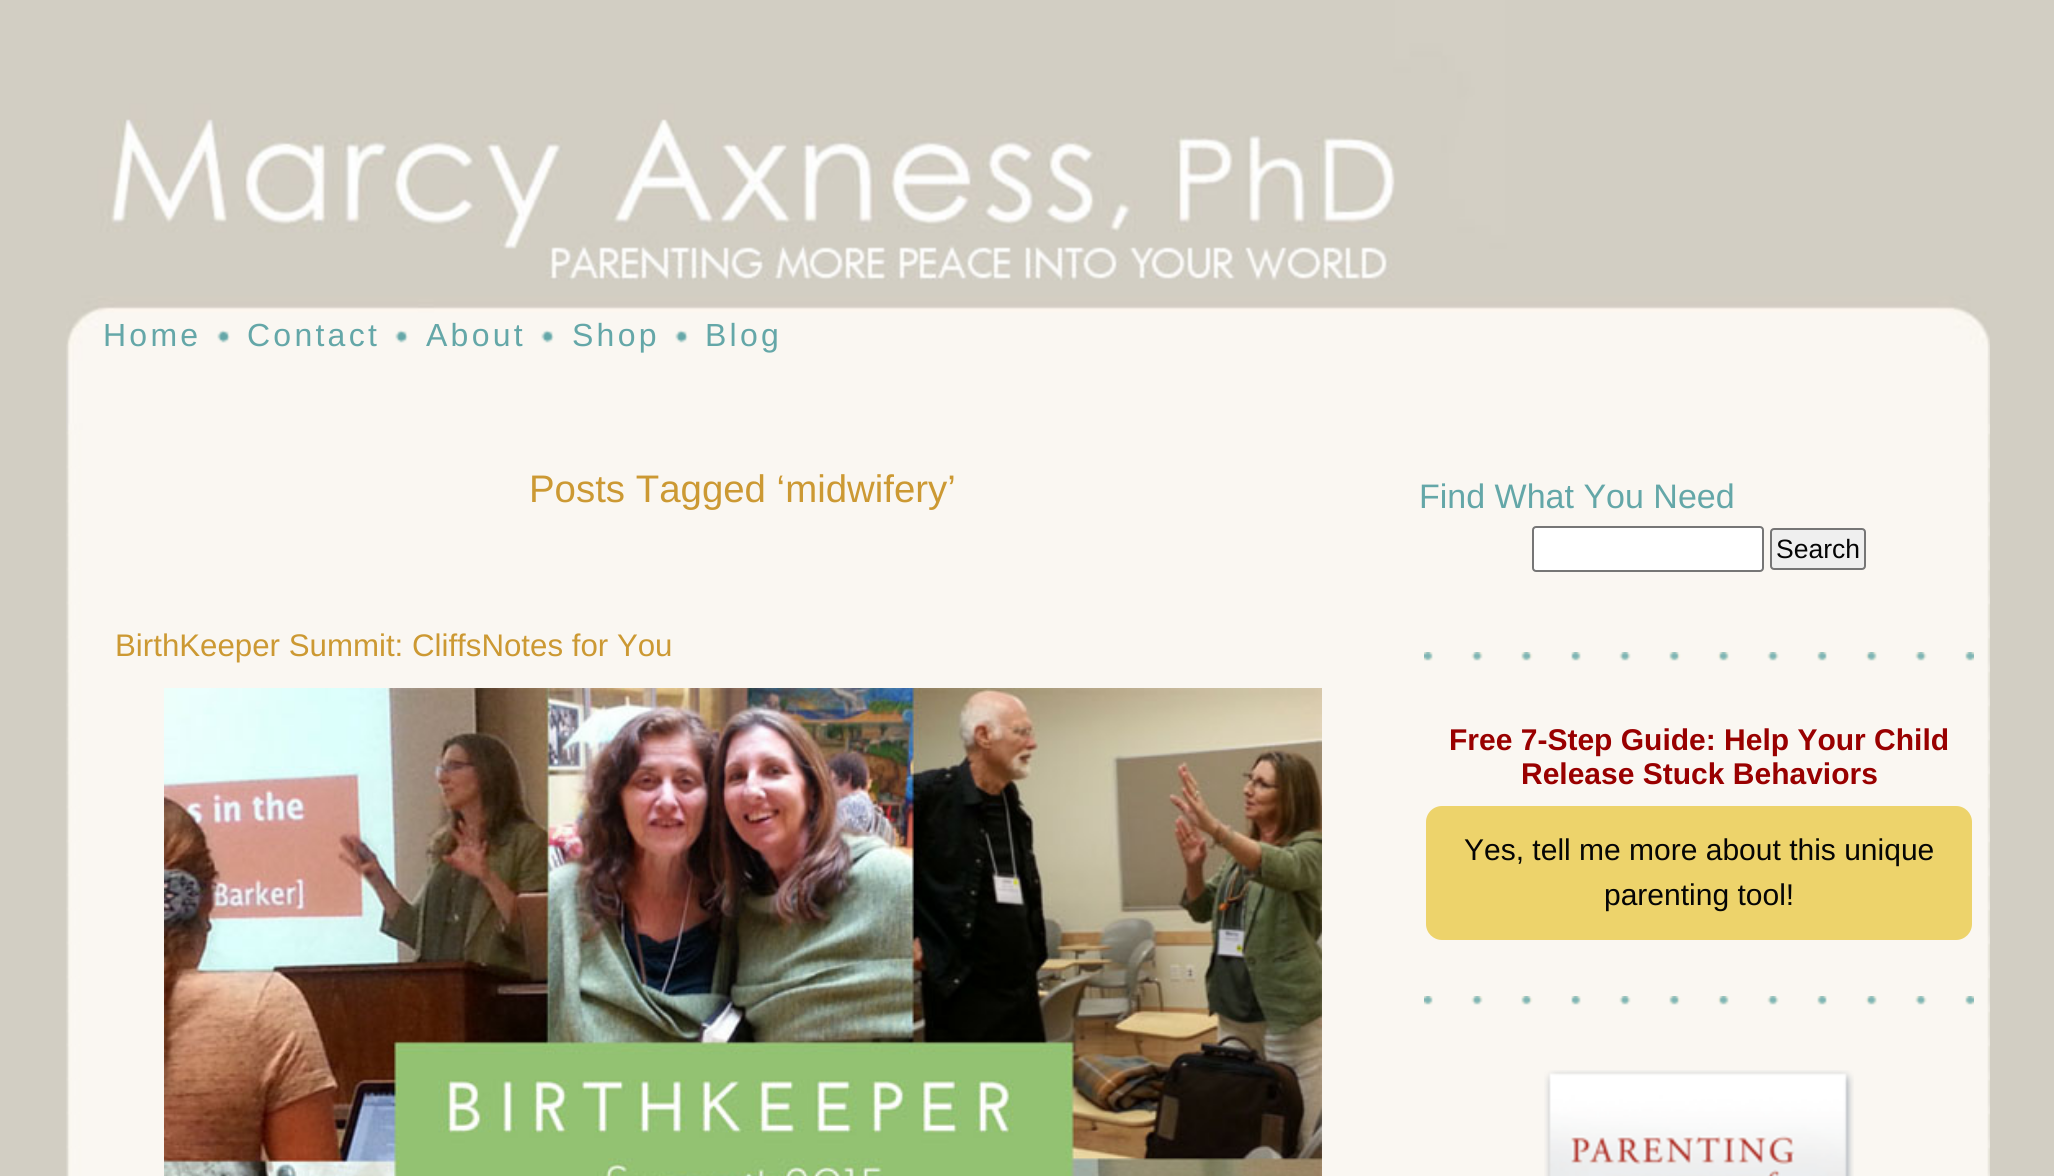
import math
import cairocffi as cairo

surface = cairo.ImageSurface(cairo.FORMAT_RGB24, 2054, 1176)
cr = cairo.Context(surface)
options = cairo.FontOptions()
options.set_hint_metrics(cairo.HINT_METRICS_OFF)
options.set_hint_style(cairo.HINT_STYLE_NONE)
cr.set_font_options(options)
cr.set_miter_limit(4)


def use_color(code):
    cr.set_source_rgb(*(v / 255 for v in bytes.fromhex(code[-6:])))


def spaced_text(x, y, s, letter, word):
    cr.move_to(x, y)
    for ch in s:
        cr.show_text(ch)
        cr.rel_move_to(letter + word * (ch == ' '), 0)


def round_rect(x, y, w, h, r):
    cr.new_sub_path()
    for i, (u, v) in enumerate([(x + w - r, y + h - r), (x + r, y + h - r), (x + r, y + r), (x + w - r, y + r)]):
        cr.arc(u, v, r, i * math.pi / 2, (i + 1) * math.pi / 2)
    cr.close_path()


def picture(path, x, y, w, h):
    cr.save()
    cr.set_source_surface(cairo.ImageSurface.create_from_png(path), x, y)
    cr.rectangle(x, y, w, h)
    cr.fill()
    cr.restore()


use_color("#d2cec3")
cr.paint()
picture("img1.png", 66, 430, 1924, 746)
picture("img2.png", 66, 0, 1924, 430)
picture("img3.png", 217, 330, 13, 13)
cr.select_font_face("Liberation Sans")
cr.set_font_size(32)
use_color("#64a7a8")
spaced_text(103, 346, "Home", 3.25, 0)
picture("img3.png", 395, 330, 13, 13)
spaced_text(247, 346, "Contact", 3.25, 0)
picture("img3.png", 541, 330, 13, 13)
spaced_text(426, 346, "About", 3.25, 0)
picture("img3.png", 675, 330, 13, 13)
spaced_text(572, 346, "Shop", 3.25, 0)
spaced_text(705, 346, "Blog", 3.25, 0)
cr.set_font_size(38.4)
use_color("#cc9933")
cr.move_to(529, 502)
cr.show_text("Posts Tagged ‘midwifery’")
cr.set_font_size(31.25)
cr.move_to(115, 656)
cr.show_text("BirthKeeper Summit: CliffsNotes for You")
picture("img4.png", 164, 688, 1158, 488)
cr.set_font_size(34)
use_color("#64a7a8")
cr.move_to(1419, 508)
cr.show_text("Find What You Need")
use_color("#ffffff")
round_rect(1533, 527, 230, 44, 3)
cr.fill_preserve()
use_color("#767676")
cr.stroke()
use_color("#efefef")
round_rect(1771, 529, 94, 40, 3)
cr.fill_preserve()
use_color("#767676")
cr.stroke()
cr.set_font_size(26.5)
use_color("#050505")
cr.move_to(1776, 558)
cr.show_text("Search")
picture("img5.png", 1424, 652, 550, 9)
cr.select_font_face("Liberation Sans", cairo.FONT_SLANT_NORMAL, cairo.FONT_WEIGHT_BOLD)
cr.set_font_size(30)
use_color("#990000")
cr.move_to(1449, 750)
cr.show_text("Free 7-Step Guide: Help Your Child")
cr.move_to(1521, 784)
cr.show_text("Release Stuck Behaviors")
use_color("#edd36b")
round_rect(1426, 806, 546, 134, 16)
cr.fill()
cr.select_font_face("Liberation Sans")
use_color("#050505")
cr.move_to(1464, 860)
cr.show_text("Yes, tell me more about this unique")
cr.move_to(1604, 905)
cr.show_text("parenting tool!")
picture("img5.png", 1424, 996, 550, 9)
picture("img6.png", 1544, 1070, 310, 106)
surface.write_to_png("result.png")
